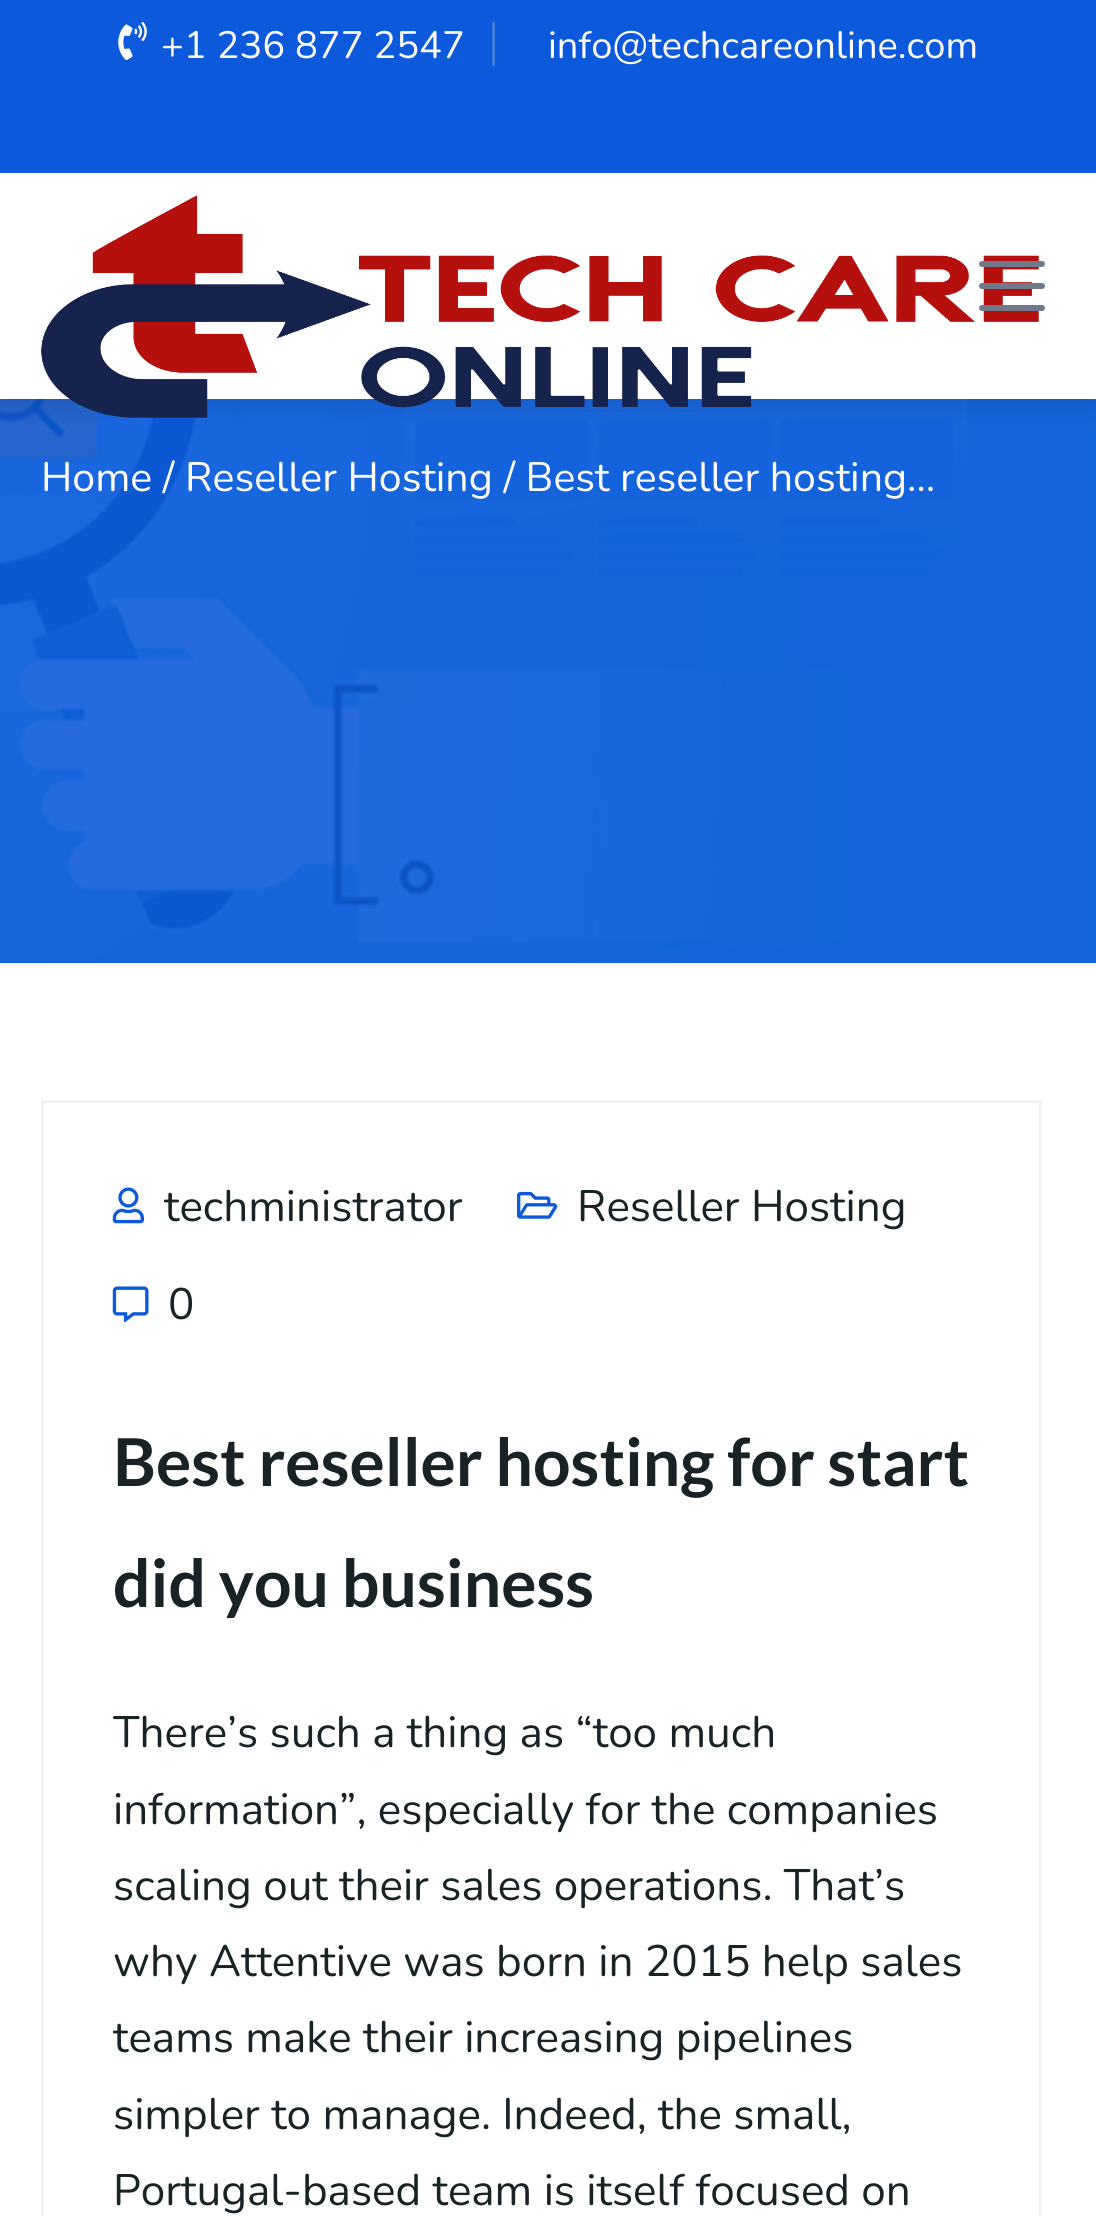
import math
import cairocffi as cairo

surface = cairo.ImageSurface(cairo.FORMAT_RGB24, 1096, 2216)
cr = cairo.Context(surface)
options = cairo.FontOptions()
options.set_hint_metrics(cairo.HINT_METRICS_OFF)
options.set_hint_style(cairo.HINT_STYLE_NONE)
cr.set_font_options(options)
cr.set_miter_limit(4)


def use_color(code):
    cr.set_source_rgb(*(v / 255 for v in bytes.fromhex(code[-6:])))


def round_rect(x, y, w, h, r):
    cr.new_sub_path()
    for i, (u, v) in enumerate([(x + w - r, y + h - r), (x + r, y + h - r), (x + r, y + r), (x + w - r, y + r)]):
        cr.arc(u, v, r, i * math.pi / 2, (i + 1) * math.pi / 2)
    cr.close_path()


def shadow(x, y, w, h, r, blur, alpha):
    cr.push_group_with_content(cairo.CONTENT_ALPHA)
    cr.set_operator(cairo.OPERATOR_SOURCE)
    for i in range(15, -16, -2):
        e = blur * i / 6
        if min(w, h) + 2 * e > 0:
            cr.set_source_rgba(0, 0, 0, alpha * math.erfc((i - 1) / 8.5) / 2)
            round_rect(x - e, y - e, w + 2 * e, h + 2 * e, max(0, min(r + e + blur * .6, min(w, h) / 2 + e)))
            cr.fill()
    cr.mask(cr.pop_group())


def picture(path, x, y, w, h):
    cr.save()
    cr.set_source_surface(cairo.ImageSurface.create_from_png(path), x, y)
    cr.rectangle(x, y, w, h)
    cr.fill()
    cr.restore()


use_color("#ffffff")
cr.paint()
use_color("#0c5adb")
cr.rectangle(0, 399, 1096, 564)
cr.fill()
picture("img3.png", 0, 399, 1096, 564)
use_color("#000000")
shadow(0, 182, 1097, 225, 0, 9.5, 0.1)
use_color("#0c5adb")
cr.rectangle(0, 0, 1096, 173)
cr.fill()
use_color("#3d7be2")
cr.rectangle(492, 22, 3, 44)
cr.fill()
picture("img1.png", 118, 22, 29, 39)
cr.select_font_face("Nunito")
cr.set_font_size(38.1)
use_color("#fefefe")
cr.move_to(161, 58)
cr.show_text("+1 236 877 2547")
cr.move_to(548, 58)
cr.show_text("info@techcareonline.com")
use_color("#ffffff")
cr.rectangle(0, 173, 1096, 226)
cr.fill()
picture("img2.png", 41, 195, 998, 223)
use_color("#70798b")
round_rect(979, 305, 66, 6, 3)
cr.fill()
round_rect(979, 283, 66, 6, 3)
cr.fill()
round_rect(979, 261, 66, 6, 3)
cr.fill()
cr.set_font_size(41.1)
use_color("#fefefe")
cr.move_to(41, 491)
cr.show_text("Home / Reseller Hosting / Best reseller hosting…")
cr.rectangle(42.5, 1101.5, 998, 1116)
use_color("#f1f1f1")
cr.set_line_width(3)
cr.stroke()
picture("img4.png", 112, 1187, 33, 37)
cr.set_font_size(44)
use_color("#192225")
cr.move_to(164, 1221)
cr.show_text("techministrator")
picture("img5.png", 517, 1191, 41, 28)
cr.move_to(577, 1221)
cr.show_text("Reseller Hosting")
picture("img6.png", 112, 1286, 37, 37)
cr.move_to(168, 1319)
cr.show_text("0")
cr.select_font_face("Lato", cairo.FONT_SLANT_NORMAL, cairo.FONT_WEIGHT_BOLD)
cr.set_font_size(66)
cr.move_to(113, 1486)
cr.show_text("Best reseller hosting for start")
cr.move_to(113, 1607)
cr.show_text("did you business")
cr.select_font_face("Nunito")
cr.set_font_size(44)
cr.move_to(113, 1747)
cr.show_text("There’s such a thing as “too much")
cr.move_to(113, 1824)
cr.show_text("information”, especially for the companies")
cr.move_to(113, 1900)
cr.show_text("scaling out their sales operations. That’s")
cr.move_to(113, 1976)
cr.show_text("why Attentive was born in 2015 help sales")
cr.move_to(113, 2052)
cr.show_text("teams make their increasing pipelines")
cr.move_to(113, 2129)
cr.show_text("simpler to manage. Indeed, the small,")
cr.move_to(113, 2205)
cr.show_text("Portugal-based team is itself focused on")
surface.write_to_png("result.png")
